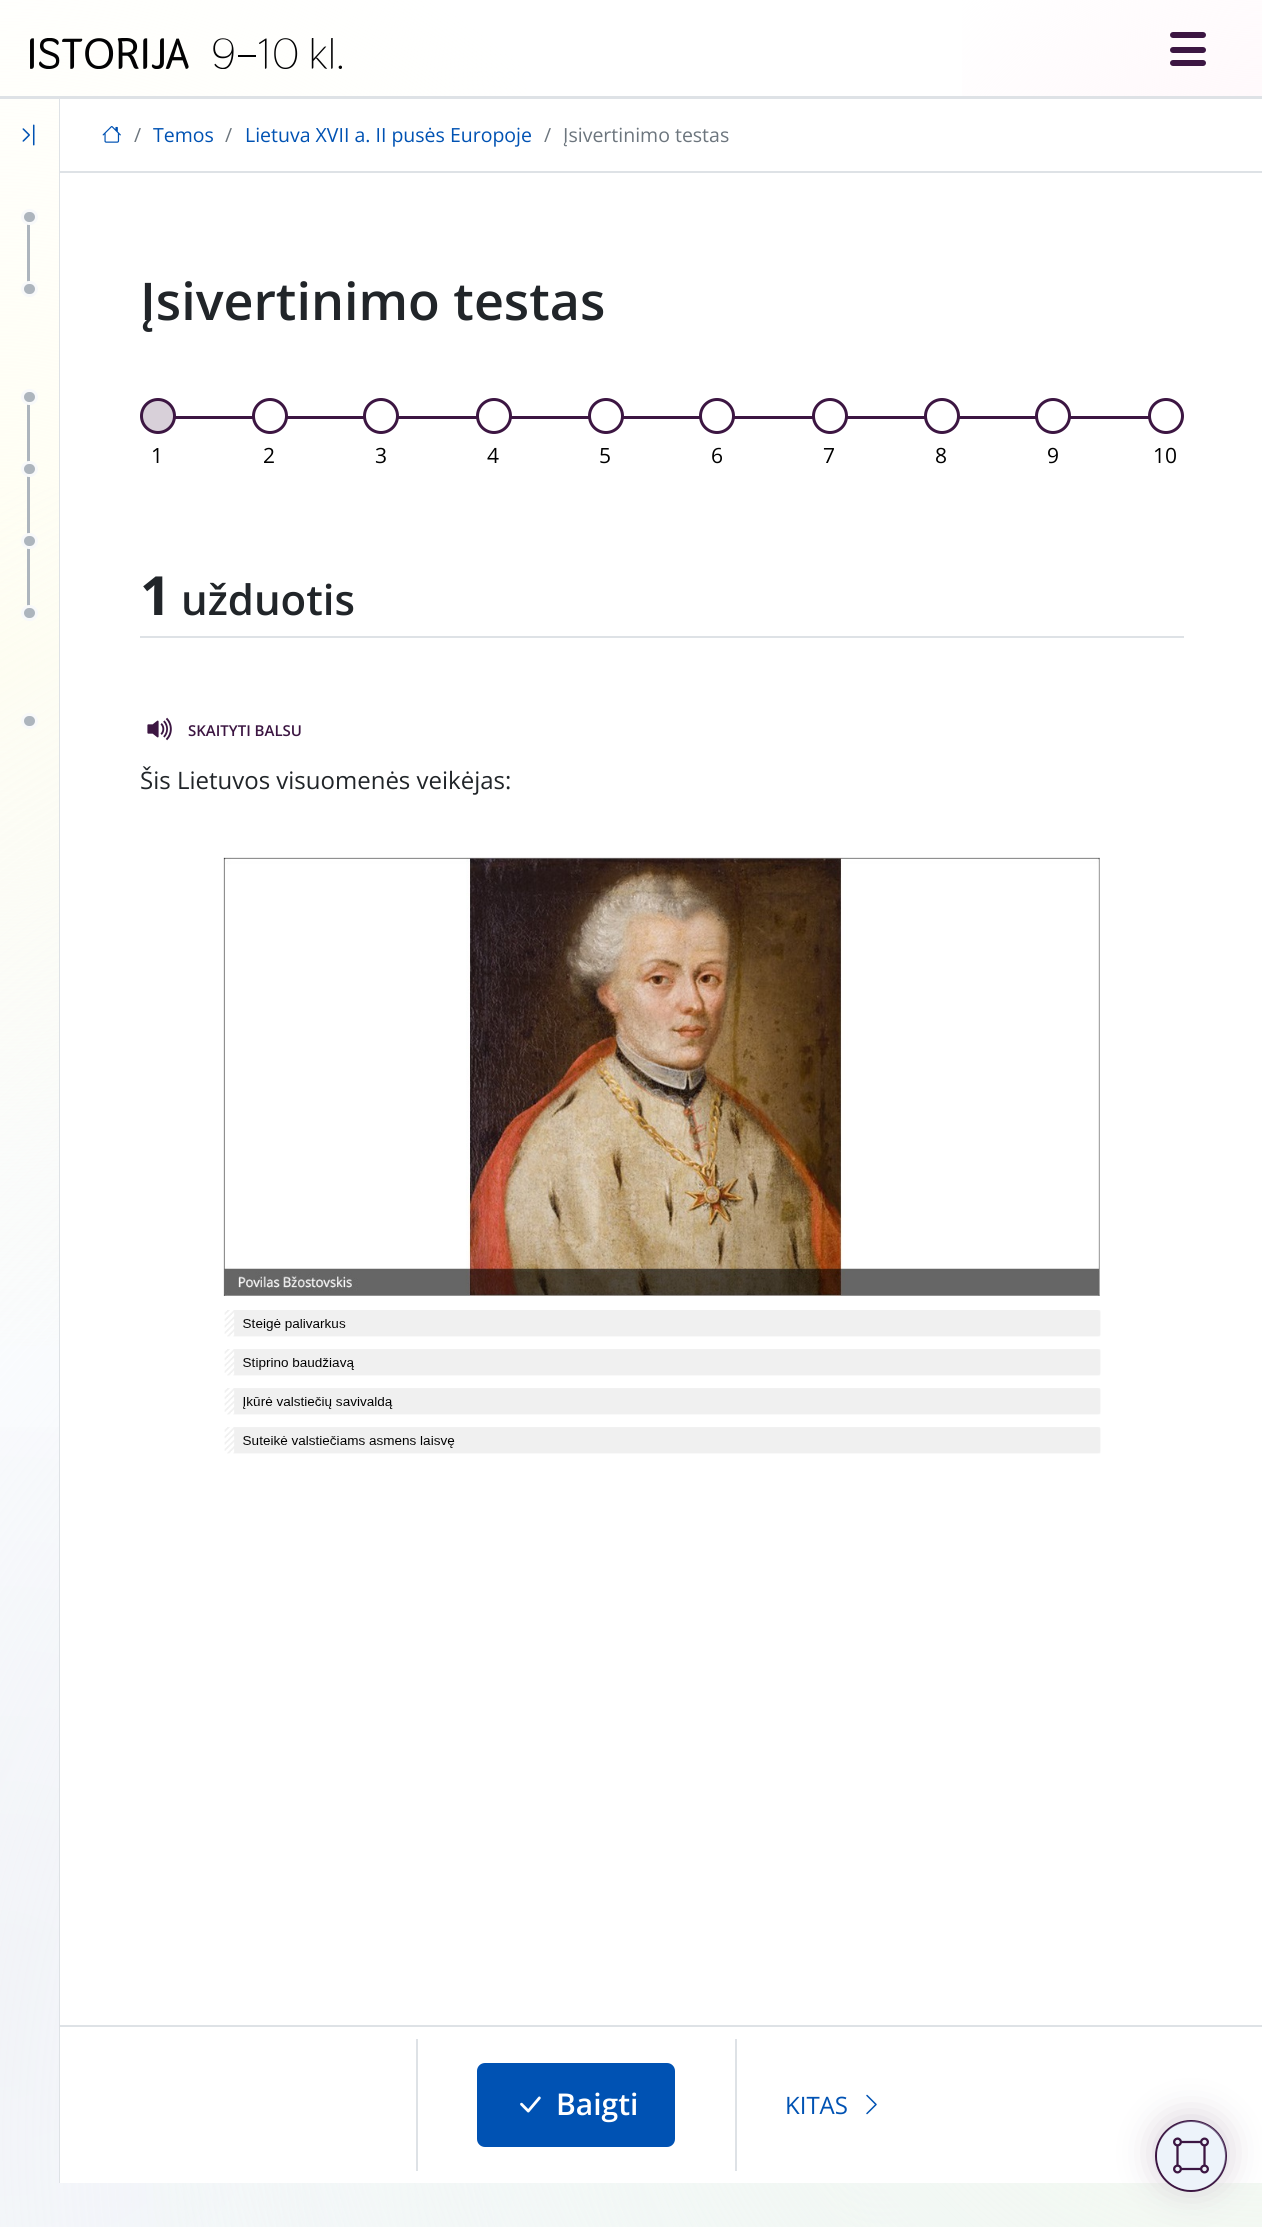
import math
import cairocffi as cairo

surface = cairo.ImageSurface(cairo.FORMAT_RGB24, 1262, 2227)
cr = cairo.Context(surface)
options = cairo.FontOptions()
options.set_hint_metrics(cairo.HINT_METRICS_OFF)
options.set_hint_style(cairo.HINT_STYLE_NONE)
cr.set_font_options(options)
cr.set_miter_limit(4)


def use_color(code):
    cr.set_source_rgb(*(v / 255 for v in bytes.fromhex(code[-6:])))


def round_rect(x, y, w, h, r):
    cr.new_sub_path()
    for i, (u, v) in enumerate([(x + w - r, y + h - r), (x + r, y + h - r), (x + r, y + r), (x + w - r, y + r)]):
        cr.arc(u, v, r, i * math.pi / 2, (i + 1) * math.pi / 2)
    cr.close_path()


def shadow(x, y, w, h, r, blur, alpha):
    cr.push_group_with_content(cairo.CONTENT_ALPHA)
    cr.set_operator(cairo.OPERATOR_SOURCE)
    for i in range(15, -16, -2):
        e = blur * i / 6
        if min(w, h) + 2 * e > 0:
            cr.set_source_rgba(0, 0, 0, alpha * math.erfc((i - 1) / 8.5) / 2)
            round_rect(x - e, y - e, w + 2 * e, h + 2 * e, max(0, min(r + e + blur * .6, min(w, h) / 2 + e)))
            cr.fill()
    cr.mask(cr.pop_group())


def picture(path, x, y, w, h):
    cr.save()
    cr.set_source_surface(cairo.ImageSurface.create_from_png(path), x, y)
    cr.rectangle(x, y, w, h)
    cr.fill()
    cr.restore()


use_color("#ffffff")
cr.paint()
gradient = cairo.RadialGradient(0, 2005, 0, 0, 2005, 2369)
gradient.add_color_stop_rgba(0, 0.957, 0.949, 0.957, 1)
gradient.add_color_stop_rgba(0.3, 1, 1, 1, 1)
cr.set_source(gradient)
cr.rectangle(0, 1427, 575, 800)
cr.fill()
gradient = cairo.RadialGradient(1263, 334, 0, 1263, 334, 2276)
gradient.add_color_stop_rgba(0, 1, 0.949, 0.969, 1)
gradient.add_color_stop_rgba(0.2, 1, 0.949, 0.969, 0)
cr.set_source(gradient)
cr.rectangle(962, 0, 300, 96)
cr.fill()
gradient = cairo.RadialGradient(0, 668, 0, 0, 668, 2007)
gradient.add_color_stop_rgba(0, 1, 0.996, 0.945, 1)
gradient.add_color_stop_rgba(0.4, 1, 0.996, 0.945, 0)
cr.set_source(gradient)
cr.rectangle(0, 0, 527, 1346)
cr.fill()
gradient = cairo.RadialGradient(884, 2138, 0, 884, 2138, 2314)
gradient.add_color_stop_rgba(0, 0.941, 0.961, 0.984, 1)
gradient.add_color_stop_rgba(0.82, 0.941, 0.961, 0.984, 0)
cr.set_source(gradient)
cr.rectangle(0, 487, 1262, 1740)
cr.fill()
gradient = cairo.RadialGradient(1263, 1893, 0, 1263, 1893, 2276)
gradient.add_color_stop_rgba(0, 0.953, 0.976, 0.941, 1)
gradient.add_color_stop_rgba(0.6, 0.953, 0.976, 0.941, 0)
cr.set_source(gradient)
cr.rectangle(153, 1322, 1109, 905)
cr.fill()
use_color("#dee2e6")
cr.rectangle(0, 96, 1262, 3)
cr.fill()
picture("img1.png", 30, 38, 312, 31)
use_color("#3c1642")
round_rect(1170, 32, 36, 6, 3)
cr.fill()
round_rect(1170, 47, 36, 6, 3)
cr.fill()
round_rect(1170, 60, 36, 6, 3)
cr.fill()
use_color("#dee2e6")
cr.rectangle(59, 99, 1, 2084)
cr.fill()
picture("img2.png", 22, 124, 13, 22)
use_color("#adb5bd")
cr.rectangle(27, 224, 3, 66)
cr.fill()
round_rect(22.5, 210.5, 14, 13, 6.5)
cr.fill_preserve()
use_color("#f8f9fa")
cr.set_line_width(3)
cr.stroke()
use_color("#adb5bd")
round_rect(22.5, 282.5, 14, 13, 6.5)
cr.fill_preserve()
use_color("#f8f9fa")
cr.stroke()
use_color("#adb5bd")
cr.rectangle(27, 404, 3, 210)
cr.fill()
round_rect(22.5, 390.5, 14, 13, 6.5)
cr.fill_preserve()
use_color("#f8f9fa")
cr.stroke()
use_color("#adb5bd")
round_rect(22.5, 462.5, 14, 13, 6.5)
cr.fill_preserve()
use_color("#f8f9fa")
cr.stroke()
use_color("#adb5bd")
round_rect(22.5, 534.5, 14, 13, 6.5)
cr.fill_preserve()
use_color("#f8f9fa")
cr.stroke()
use_color("#adb5bd")
round_rect(22.5, 606.5, 14, 13, 6.5)
cr.fill_preserve()
use_color("#f8f9fa")
cr.stroke()
use_color("#adb5bd")
round_rect(22.5, 714.5, 14, 13, 6.5)
cr.fill_preserve()
use_color("#f8f9fa")
cr.stroke()
use_color("#ffffff")
cr.rectangle(60, 99, 1202, 2084)
cr.fill()
use_color("#dee2e6")
cr.rectangle(60, 171, 1202, 2)
cr.fill()
picture("img3.png", 102, 126, 19, 17)
cr.select_font_face("Open Sans")
cr.set_font_size(19.5)
use_color("#6c757d")
cr.move_to(134, 142)
cr.show_text("/")
use_color("#0052b3")
cr.move_to(153, 142)
cr.show_text("Temos")
use_color("#6c757d")
cr.move_to(225, 142)
cr.show_text("/")
use_color("#0052b3")
cr.move_to(245, 142)
cr.show_text("Lietuva XVII a. II pusės Europoje")
use_color("#6c757d")
cr.move_to(544, 142)
cr.show_text("/")
cr.move_to(563, 142)
cr.show_text("Įsivertinimo testas")
cr.select_font_face("Open Sans SemiBold")
cr.set_font_size(52)
use_color("#212529")
cr.move_to(140, 320)
cr.show_text("Įsivertinimo testas")
use_color("#3c1642")
cr.rectangle(175, 416, 974, 3)
cr.fill()
use_color("#d8d0d9")
cr.arc(158, 416, 16.5, 0, 2 * math.pi)
cr.fill_preserve()
use_color("#3c1642")
cr.stroke()
cr.select_font_face("Open Sans")
cr.set_font_size(21)
use_color("#000000")
cr.move_to(151, 463)
cr.show_text("1")
use_color("#ffffff")
cr.new_path()
cr.arc(270, 416, 16.5, 0, 2 * math.pi)
cr.fill_preserve()
use_color("#3c1642")
cr.stroke()
use_color("#000000")
cr.move_to(263, 463)
cr.show_text("2")
use_color("#ffffff")
cr.new_path()
cr.arc(381, 416, 16.5, 0, 2 * math.pi)
cr.fill_preserve()
use_color("#3c1642")
cr.stroke()
use_color("#000000")
cr.move_to(375, 463)
cr.show_text("3")
use_color("#ffffff")
cr.new_path()
cr.arc(494, 416, 16.5, 0, 2 * math.pi)
cr.fill_preserve()
use_color("#3c1642")
cr.stroke()
use_color("#000000")
cr.move_to(487, 463)
cr.show_text("4")
use_color("#ffffff")
cr.new_path()
cr.arc(606, 416, 16.5, 0, 2 * math.pi)
cr.fill_preserve()
use_color("#3c1642")
cr.stroke()
use_color("#000000")
cr.move_to(599, 463)
cr.show_text("5")
use_color("#ffffff")
cr.new_path()
cr.arc(717, 416, 16.5, 0, 2 * math.pi)
cr.fill_preserve()
use_color("#3c1642")
cr.stroke()
use_color("#000000")
cr.move_to(711, 463)
cr.show_text("6")
use_color("#ffffff")
cr.new_path()
cr.arc(830, 416, 16.5, 0, 2 * math.pi)
cr.fill_preserve()
use_color("#3c1642")
cr.stroke()
use_color("#000000")
cr.move_to(823, 463)
cr.show_text("7")
use_color("#ffffff")
cr.new_path()
cr.arc(942, 416, 16.5, 0, 2 * math.pi)
cr.fill_preserve()
use_color("#3c1642")
cr.stroke()
use_color("#000000")
cr.move_to(935, 463)
cr.show_text("8")
use_color("#ffffff")
cr.new_path()
cr.arc(1053, 416, 16.5, 0, 2 * math.pi)
cr.fill_preserve()
use_color("#3c1642")
cr.stroke()
use_color("#000000")
cr.move_to(1047, 463)
cr.show_text("9")
use_color("#ffffff")
cr.new_path()
cr.arc(1166, 416, 16.5, 0, 2 * math.pi)
cr.fill_preserve()
use_color("#3c1642")
cr.stroke()
use_color("#000000")
cr.move_to(1153, 463)
cr.show_text("10")
use_color("#dee2e6")
cr.rectangle(140, 636, 1044, 2)
cr.fill()
cr.select_font_face("Open Sans", cairo.FONT_SLANT_NORMAL, cairo.FONT_WEIGHT_BOLD)
cr.set_font_size(54)
use_color("#212529")
cr.move_to(140, 615)
cr.show_text("1")
cr.select_font_face("Open Sans SemiBold")
cr.set_font_size(42)
cr.move_to(181, 615)
cr.show_text("užduotis")
picture("img4.png", 147, 717, 25, 24)
cr.set_font_size(15)
use_color("#3c1642")
cr.move_to(188, 736)
cr.show_text("SKAITYTI BALSU")
cr.select_font_face("Open Sans")
cr.set_font_size(24)
use_color("#212529")
cr.move_to(140, 789)
cr.show_text("Šis Lietuvos visuomenės veikėjas:")
picture("img5.png", 223, 857, 878, 597)
use_color("#dee2e6")
cr.rectangle(60, 2025, 1202, 2)
cr.fill()
cr.rectangle(735, 2039, 2, 132)
cr.fill()
cr.rectangle(416, 2039, 2, 132)
cr.fill()
use_color("#0052b3")
round_rect(478, 2064, 196, 82, 7)
cr.fill_preserve()
cr.set_line_width(2)
cr.stroke()
picture("img6.png", 520, 2096, 21, 17)
cr.select_font_face("Open Sans SemiBold")
cr.set_font_size(30)
use_color("#ffffff")
cr.move_to(556, 2115)
cr.show_text("Baigti")
cr.select_font_face("Open Sans")
cr.set_font_size(24)
use_color("#0052b3")
cr.move_to(785, 2114)
cr.show_text("KITAS")
picture("img7.png", 866, 2094, 11, 21)
use_color("#d8d0d9")
shadow(1155, 2117, 72, 72, 36, 18, 1)
use_color("#ffffff")
cr.arc(1191, 2156, 35, 0, 2 * math.pi)
cr.fill_preserve()
use_color("#3c1642")
cr.stroke()
cr.set_source_rgba(0.8, 0.863, 0.941, 0.35)
cr.arc(1191.5, 2155.5, 34.5, 0, 2 * math.pi)
cr.fill()
picture("img8.png", 1173, 2137, 36, 37)
surface.write_to_png("result.png")
